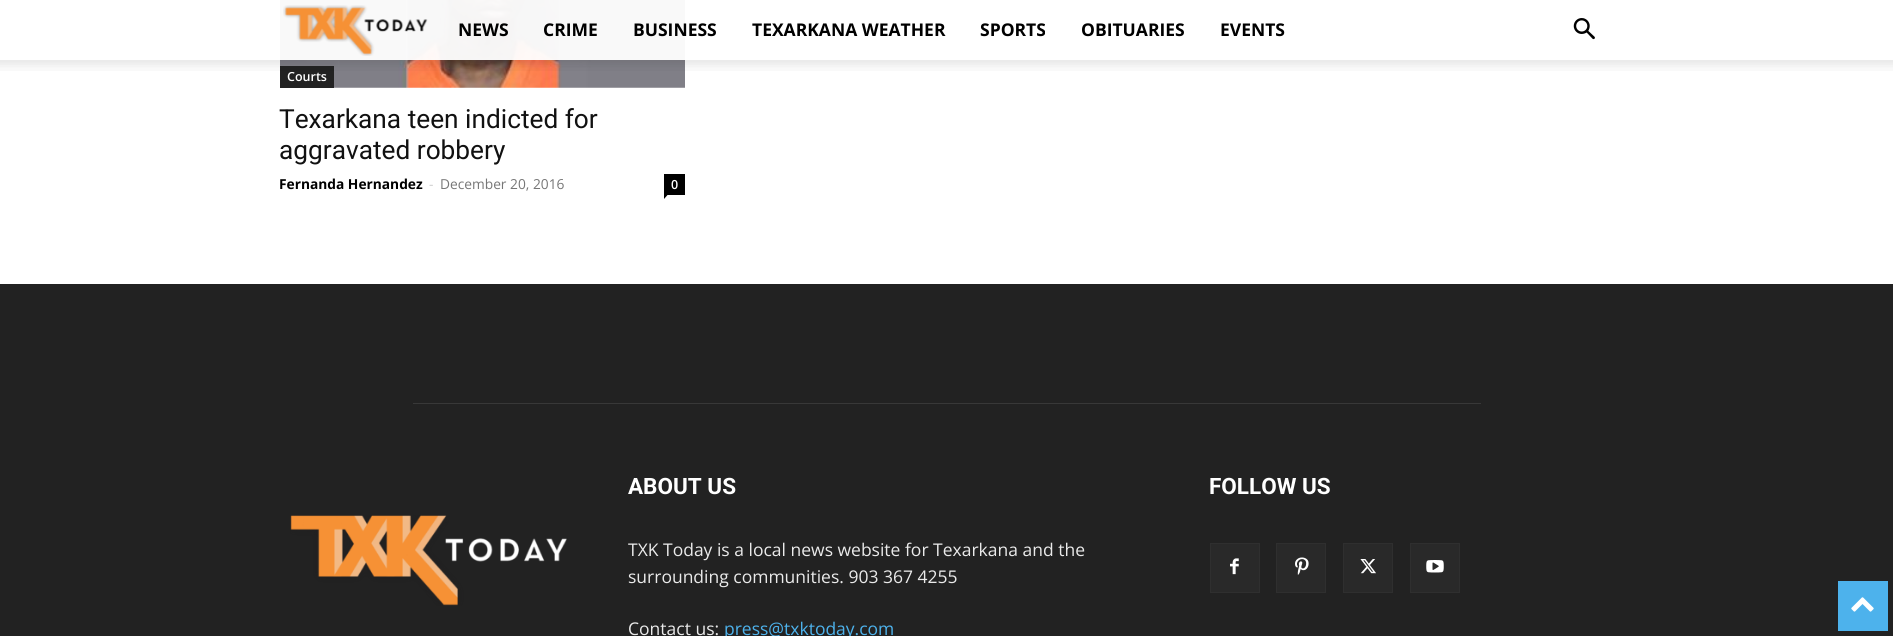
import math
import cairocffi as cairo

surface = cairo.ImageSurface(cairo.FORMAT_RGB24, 1893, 636)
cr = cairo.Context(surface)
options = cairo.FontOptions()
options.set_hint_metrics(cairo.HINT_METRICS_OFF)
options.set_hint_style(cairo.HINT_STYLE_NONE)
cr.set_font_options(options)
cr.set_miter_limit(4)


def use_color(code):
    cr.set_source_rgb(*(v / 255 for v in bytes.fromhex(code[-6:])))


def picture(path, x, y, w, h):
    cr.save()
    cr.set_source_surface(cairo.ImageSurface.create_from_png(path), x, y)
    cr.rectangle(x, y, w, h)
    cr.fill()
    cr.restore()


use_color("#ffffff")
cr.paint()
picture("img4.png", 280, 0, 405, 88)
cr.set_source_rgba(1, 1, 1, 0.95)
cr.rectangle(280, 0, 405, 60)
cr.fill()
picture("img1.png", 283, 5, 145, 51)
cr.select_font_face("Open Sans", cairo.FONT_SLANT_NORMAL, cairo.FONT_WEIGHT_BOLD)
cr.set_font_size(17.5)
use_color("#000000")
cr.move_to(458, 36)
cr.show_text("NEWS")
cr.move_to(543, 36)
cr.show_text("CRIME")
cr.move_to(633, 36)
cr.show_text("BUSINESS")
cr.move_to(752, 36)
cr.show_text("TEXARKANA WEATHER")
cr.move_to(980, 36)
cr.show_text("SPORTS")
cr.move_to(1081, 36)
cr.show_text("OBITUARIES")
cr.move_to(1220, 36)
cr.show_text("EVENTS")
picture("img2.png", 1573, 18, 22, 22)
use_color("#222222")
cr.rectangle(280, 66, 54, 22)
cr.fill()
picture("img3.png", 0, 60, 1893, 11)
cr.select_font_face("Open Sans SemiBold")
cr.set_font_size(12.5)
use_color("#ffffff")
cr.move_to(287, 81)
cr.show_text("Courts")
cr.select_font_face("Roboto")
cr.set_font_size(26.25)
use_color("#111111")
cr.move_to(279, 128)
cr.show_text("Texarkana teen indicted for")
cr.move_to(279, 159)
cr.show_text("aggravated robbery")
cr.select_font_face("Open Sans", cairo.FONT_SLANT_NORMAL, cairo.FONT_WEIGHT_BOLD)
cr.set_font_size(13.75)
use_color("#000000")
cr.move_to(279, 189)
cr.show_text("Fernanda Hernandez")
cr.select_font_face("Open Sans")
use_color("#cccccc")
cr.move_to(429, 189)
cr.show_text("-")
use_color("#767676")
cr.move_to(440, 189)
cr.show_text("December 20, 2016")
use_color("#000000")
cr.rectangle(664, 174, 21, 21)
cr.fill()
cr.select_font_face("Open Sans SemiBold")
cr.set_font_size(12.5)
use_color("#ffffff")
cr.move_to(671, 189)
cr.show_text("0")
use_color("#000000")
cr.new_path()
cr.move_to(664, 195)
cr.line_to(667.5, 195)
cr.line_to(664, 199)
cr.close_path()
cr.fill()
use_color("#222222")
cr.rectangle(0, 284, 1893, 352)
cr.fill()
use_color("#383838")
cr.rectangle(413, 403, 1068, 1)
cr.fill()
cr.select_font_face("Roboto", cairo.FONT_SLANT_NORMAL, cairo.FONT_WEIGHT_BOLD)
cr.set_font_size(22.5)
use_color("#ffffff")
cr.move_to(628, 494)
cr.show_text("ABOUT US")
cr.select_font_face("Open Sans")
cr.set_font_size(17.5)
use_color("#eaeaea")
cr.move_to(628, 556)
cr.show_text("TXK Today is a local news website for Texarkana and the")
cr.move_to(628, 583)
cr.show_text("surrounding communities. 903 367 4255")
cr.move_to(628, 635)
cr.show_text("Contact us:")
use_color("#4db2ec")
cr.move_to(724, 635)
cr.show_text("press@txktoday.com")
cr.select_font_face("Roboto", cairo.FONT_SLANT_NORMAL, cairo.FONT_WEIGHT_BOLD)
cr.set_font_size(22.5)
use_color("#ffffff")
cr.move_to(1209, 494)
cr.show_text("FOLLOW US")
use_color("#292929")
cr.rectangle(1211, 544, 48, 48)
cr.fill()
picture("img5.png", 1230, 558, 9, 17)
cr.rectangle(1210.5, 543.5, 49, 49)
use_color("#2f2f2f")
cr.set_line_width(1)
cr.stroke()
use_color("#292929")
cr.rectangle(1277, 544, 48, 48)
cr.fill()
picture("img6.png", 1295, 557, 14, 18)
cr.rectangle(1276.5, 543.5, 49, 49)
use_color("#2f2f2f")
cr.stroke()
use_color("#292929")
cr.rectangle(1344, 544, 48, 48)
cr.fill()
picture("img7.png", 1360, 559, 16, 15)
cr.rectangle(1343.5, 543.5, 49, 49)
use_color("#2f2f2f")
cr.stroke()
use_color("#292929")
cr.rectangle(1411, 544, 48, 48)
cr.fill()
picture("img8.png", 1426, 560, 18, 13)
cr.rectangle(1410.5, 543.5, 49, 49)
use_color("#2f2f2f")
cr.stroke()
picture("img9.png", 290, 515, 277, 91)
use_color("#4db2ec")
cr.rectangle(1838, 581, 50, 50)
cr.fill()
picture("img10.png", 1851, 597, 23, 15)
surface.write_to_png("result.png")
